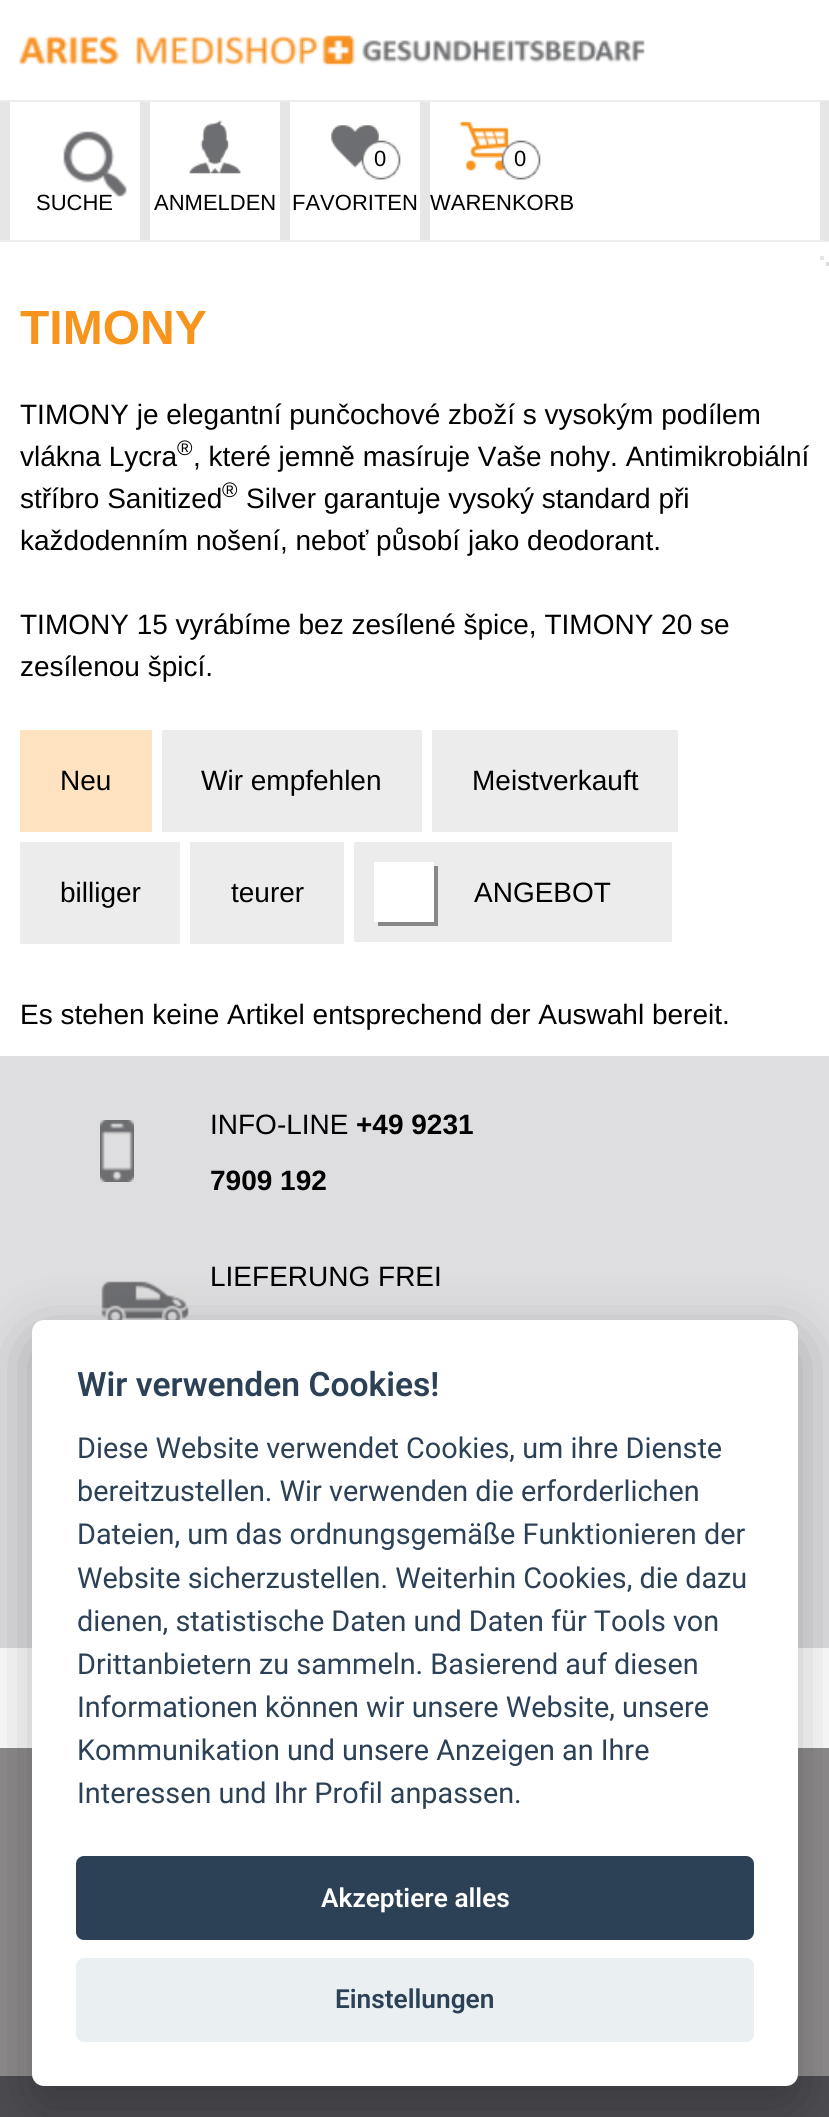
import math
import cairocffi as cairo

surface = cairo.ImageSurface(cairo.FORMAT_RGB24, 829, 2117)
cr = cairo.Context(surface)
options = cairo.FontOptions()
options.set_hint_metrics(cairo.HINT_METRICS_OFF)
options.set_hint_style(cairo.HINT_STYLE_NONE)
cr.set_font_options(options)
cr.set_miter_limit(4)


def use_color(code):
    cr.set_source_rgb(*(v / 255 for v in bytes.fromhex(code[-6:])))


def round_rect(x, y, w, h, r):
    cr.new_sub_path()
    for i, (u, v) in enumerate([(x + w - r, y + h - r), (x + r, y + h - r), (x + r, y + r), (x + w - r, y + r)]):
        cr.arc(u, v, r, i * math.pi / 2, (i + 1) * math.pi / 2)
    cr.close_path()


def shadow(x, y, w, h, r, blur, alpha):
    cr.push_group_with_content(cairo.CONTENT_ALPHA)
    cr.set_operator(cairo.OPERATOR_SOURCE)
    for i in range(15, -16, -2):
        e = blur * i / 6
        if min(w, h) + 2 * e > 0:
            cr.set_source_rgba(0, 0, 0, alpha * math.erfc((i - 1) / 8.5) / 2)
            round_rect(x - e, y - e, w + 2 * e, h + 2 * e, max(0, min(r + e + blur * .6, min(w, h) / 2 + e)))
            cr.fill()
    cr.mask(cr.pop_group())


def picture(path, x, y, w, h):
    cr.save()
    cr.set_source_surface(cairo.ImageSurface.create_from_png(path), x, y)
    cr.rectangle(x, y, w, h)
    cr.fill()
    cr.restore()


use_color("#ffffff")
cr.paint()
picture("img1.png", 19, 35, 626, 31)
use_color("#ededed")
cr.new_path()
cr.move_to(0, 100)
cr.line_to(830, 100)
cr.line_to(820, 102)
cr.line_to(0, 102)
cr.close_path()
cr.fill()
use_color("#e6e6e6")
cr.new_path()
cr.move_to(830, 100)
cr.line_to(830, 242)
cr.line_to(820, 240)
cr.line_to(820, 102)
cr.close_path()
cr.fill()
use_color("#ededed")
cr.new_path()
cr.move_to(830, 242)
cr.line_to(0, 242)
cr.line_to(0, 240)
cr.line_to(820, 240)
cr.close_path()
cr.fill()
use_color("#e6e6e6")
cr.rectangle(0, 102, 10, 138)
cr.fill()
picture("img2.png", 63, 131, 64, 66)
cr.select_font_face("Liberation Sans")
cr.set_font_size(22)
use_color("#000000")
cr.move_to(36, 210)
cr.show_text("SUCHE")
picture("img3.png", 189, 120, 52, 54)
use_color("#e6e6e6")
cr.rectangle(140, 102, 10, 138)
cr.fill()
use_color("#000000")
cr.move_to(154, 210)
cr.show_text("ANMELDEN")
picture("img4.png", 331, 125, 70, 55)
use_color("#e6e6e6")
cr.rectangle(280, 102, 10, 138)
cr.fill()
use_color("#000000")
cr.move_to(374, 166)
cr.show_text("0")
cr.move_to(292, 210)
cr.show_text("FAVORITEN")
picture("img5.png", 460, 121, 81, 59)
use_color("#e6e6e6")
cr.rectangle(420, 102, 10, 138)
cr.fill()
use_color("#000000")
cr.move_to(514, 166)
cr.show_text("0")
cr.move_to(430, 210)
cr.show_text("WARENKORB")
use_color("#dddddd")
cr.rectangle(826, 262, 3, 4)
cr.fill()
use_color("#e5e5e5")
cr.rectangle(820, 256, 4, 4)
cr.fill()
cr.select_font_face("Liberation Sans", cairo.FONT_SLANT_NORMAL, cairo.FONT_WEIGHT_BOLD)
cr.set_font_size(48)
use_color("#f7941d")
cr.move_to(20, 344)
cr.show_text("TIMONY")
cr.select_font_face("Liberation Sans")
cr.set_font_size(28)
use_color("#000000")
cr.move_to(20, 424)
cr.show_text("TIMONY je elegantní punčochové zboží s vysokým podílem")
cr.move_to(20, 466)
cr.show_text("vlákna Lycra")
cr.set_font_size(21)
cr.move_to(177, 455)
cr.show_text("®")
cr.set_font_size(28)
cr.move_to(193, 466)
cr.show_text(", které jemně masíruje Vaše nohy. Antimikrobiální")
cr.move_to(20, 508)
cr.show_text("stříbro Sanitized")
cr.set_font_size(21)
cr.move_to(222, 497)
cr.show_text("®")
cr.set_font_size(28)
cr.move_to(246, 508)
cr.show_text("Silver garantuje vysoký standard při")
cr.move_to(20, 550)
cr.show_text("každodenním nošení, neboť působí jako deodorant.")
cr.move_to(20, 634)
cr.show_text("TIMONY 15 vyrábíme bez zesílené špice, TIMONY 20 se")
cr.move_to(20, 676)
cr.show_text("zesílenou špicí.")
use_color("#ffe3c1")
cr.rectangle(20, 730, 132, 102)
cr.fill()
use_color("#000000")
cr.move_to(60, 790)
cr.show_text("Neu")
use_color("#ececec")
cr.rectangle(162, 730, 260, 102)
cr.fill()
use_color("#000000")
cr.move_to(201, 790)
cr.show_text("Wir empfehlen")
use_color("#ececec")
cr.rectangle(432, 730, 246, 102)
cr.fill()
use_color("#000000")
cr.move_to(472, 790)
cr.show_text("Meistverkauft")
use_color("#ececec")
cr.rectangle(20, 842, 160, 102)
cr.fill()
use_color("#000000")
cr.move_to(60, 902)
cr.show_text("billiger")
use_color("#ececec")
cr.rectangle(190, 842, 154, 102)
cr.fill()
use_color("#000000")
cr.move_to(231, 902)
cr.show_text("teurer")
use_color("#ececec")
cr.rectangle(354, 842, 318, 100)
cr.fill()
use_color("#888888")
cr.new_path()
cr.move_to(378, 922)
cr.line_to(378, 926)
cr.line_to(438, 926)
cr.line_to(438, 866)
cr.line_to(434, 866)
cr.line_to(434, 922)
cr.close_path()
cr.fill()
use_color("#ffffff")
cr.rectangle(374, 862, 60, 60)
cr.fill()
use_color("#000000")
cr.move_to(474, 902)
cr.show_text("ANGEBOT")
cr.move_to(20, 1024)
cr.show_text("Es stehen keine Artikel entsprechend der Auswahl bereit.")
use_color("#dedee0")
cr.rectangle(0, 1056, 829, 592)
cr.fill()
picture("img6.png", 100, 1120, 34, 62)
use_color("#000000")
cr.move_to(210, 1134)
cr.show_text("INFO-LINE")
cr.select_font_face("Liberation Sans", cairo.FONT_SLANT_NORMAL, cairo.FONT_WEIGHT_BOLD)
cr.move_to(356, 1134)
cr.show_text("+49 9231")
cr.move_to(210, 1190)
cr.show_text("7909 192")
picture("img7.png", 101, 1281, 88, 39)
cr.select_font_face("Liberation Sans")
cr.move_to(210, 1286)
cr.show_text("LIEFERUNG FREI")
use_color("#8e8c8d")
cr.rectangle(0, 1748, 829, 328)
cr.fill()
use_color("#4d4c51")
cr.rectangle(0, 2076, 829, 41)
cr.fill()
use_color("#020203")
shadow(32, 1340, 766, 766, 12, 30, 0.28)
use_color("#ffffff")
round_rect(32, 1320, 766, 766, 12)
cr.fill()
cr.select_font_face("Roboto SemiBold")
cr.set_font_size(33.6)
use_color("#2d4156")
cr.move_to(77, 1396)
cr.show_text("Wir verwenden Cookies!")
cr.select_font_face("Roboto")
cr.set_font_size(28.8)
cr.move_to(77, 1458)
cr.show_text("Diese Website verwendet Cookies, um ihre Dienste")
cr.move_to(77, 1501)
cr.show_text("bereitzustellen. Wir verwenden die erforderlichen")
cr.move_to(77, 1544)
cr.show_text("Dateien, um das ordnungsgemäße Funktionieren der")
cr.move_to(77, 1588)
cr.show_text("Website sicherzustellen. Weiterhin Cookies, die dazu")
cr.move_to(77, 1631)
cr.show_text("dienen, statistische Daten und Daten für Tools von")
cr.move_to(77, 1674)
cr.show_text("Drittanbietern zu sammeln. Basierend auf diesen")
cr.move_to(77, 1717)
cr.show_text("Informationen können wir unsere Website, unsere")
cr.move_to(77, 1760)
cr.show_text("Kommunikation und unsere Anzeigen an Ihre")
cr.move_to(77, 1803)
cr.show_text("Interessen und Ihr Profil anpassen.")
round_rect(76, 1856, 678, 84, 8)
cr.fill()
cr.select_font_face("Roboto SemiBold")
cr.set_font_size(26.25)
use_color("#ffffff")
cr.move_to(321, 1907)
cr.show_text("Akzeptiere alles")
use_color("#eaeff2")
round_rect(76, 1958, 678, 84, 8)
cr.fill()
use_color("#2d4156")
cr.move_to(335, 2008)
cr.show_text("Einstellungen")
surface.write_to_png("result.png")
